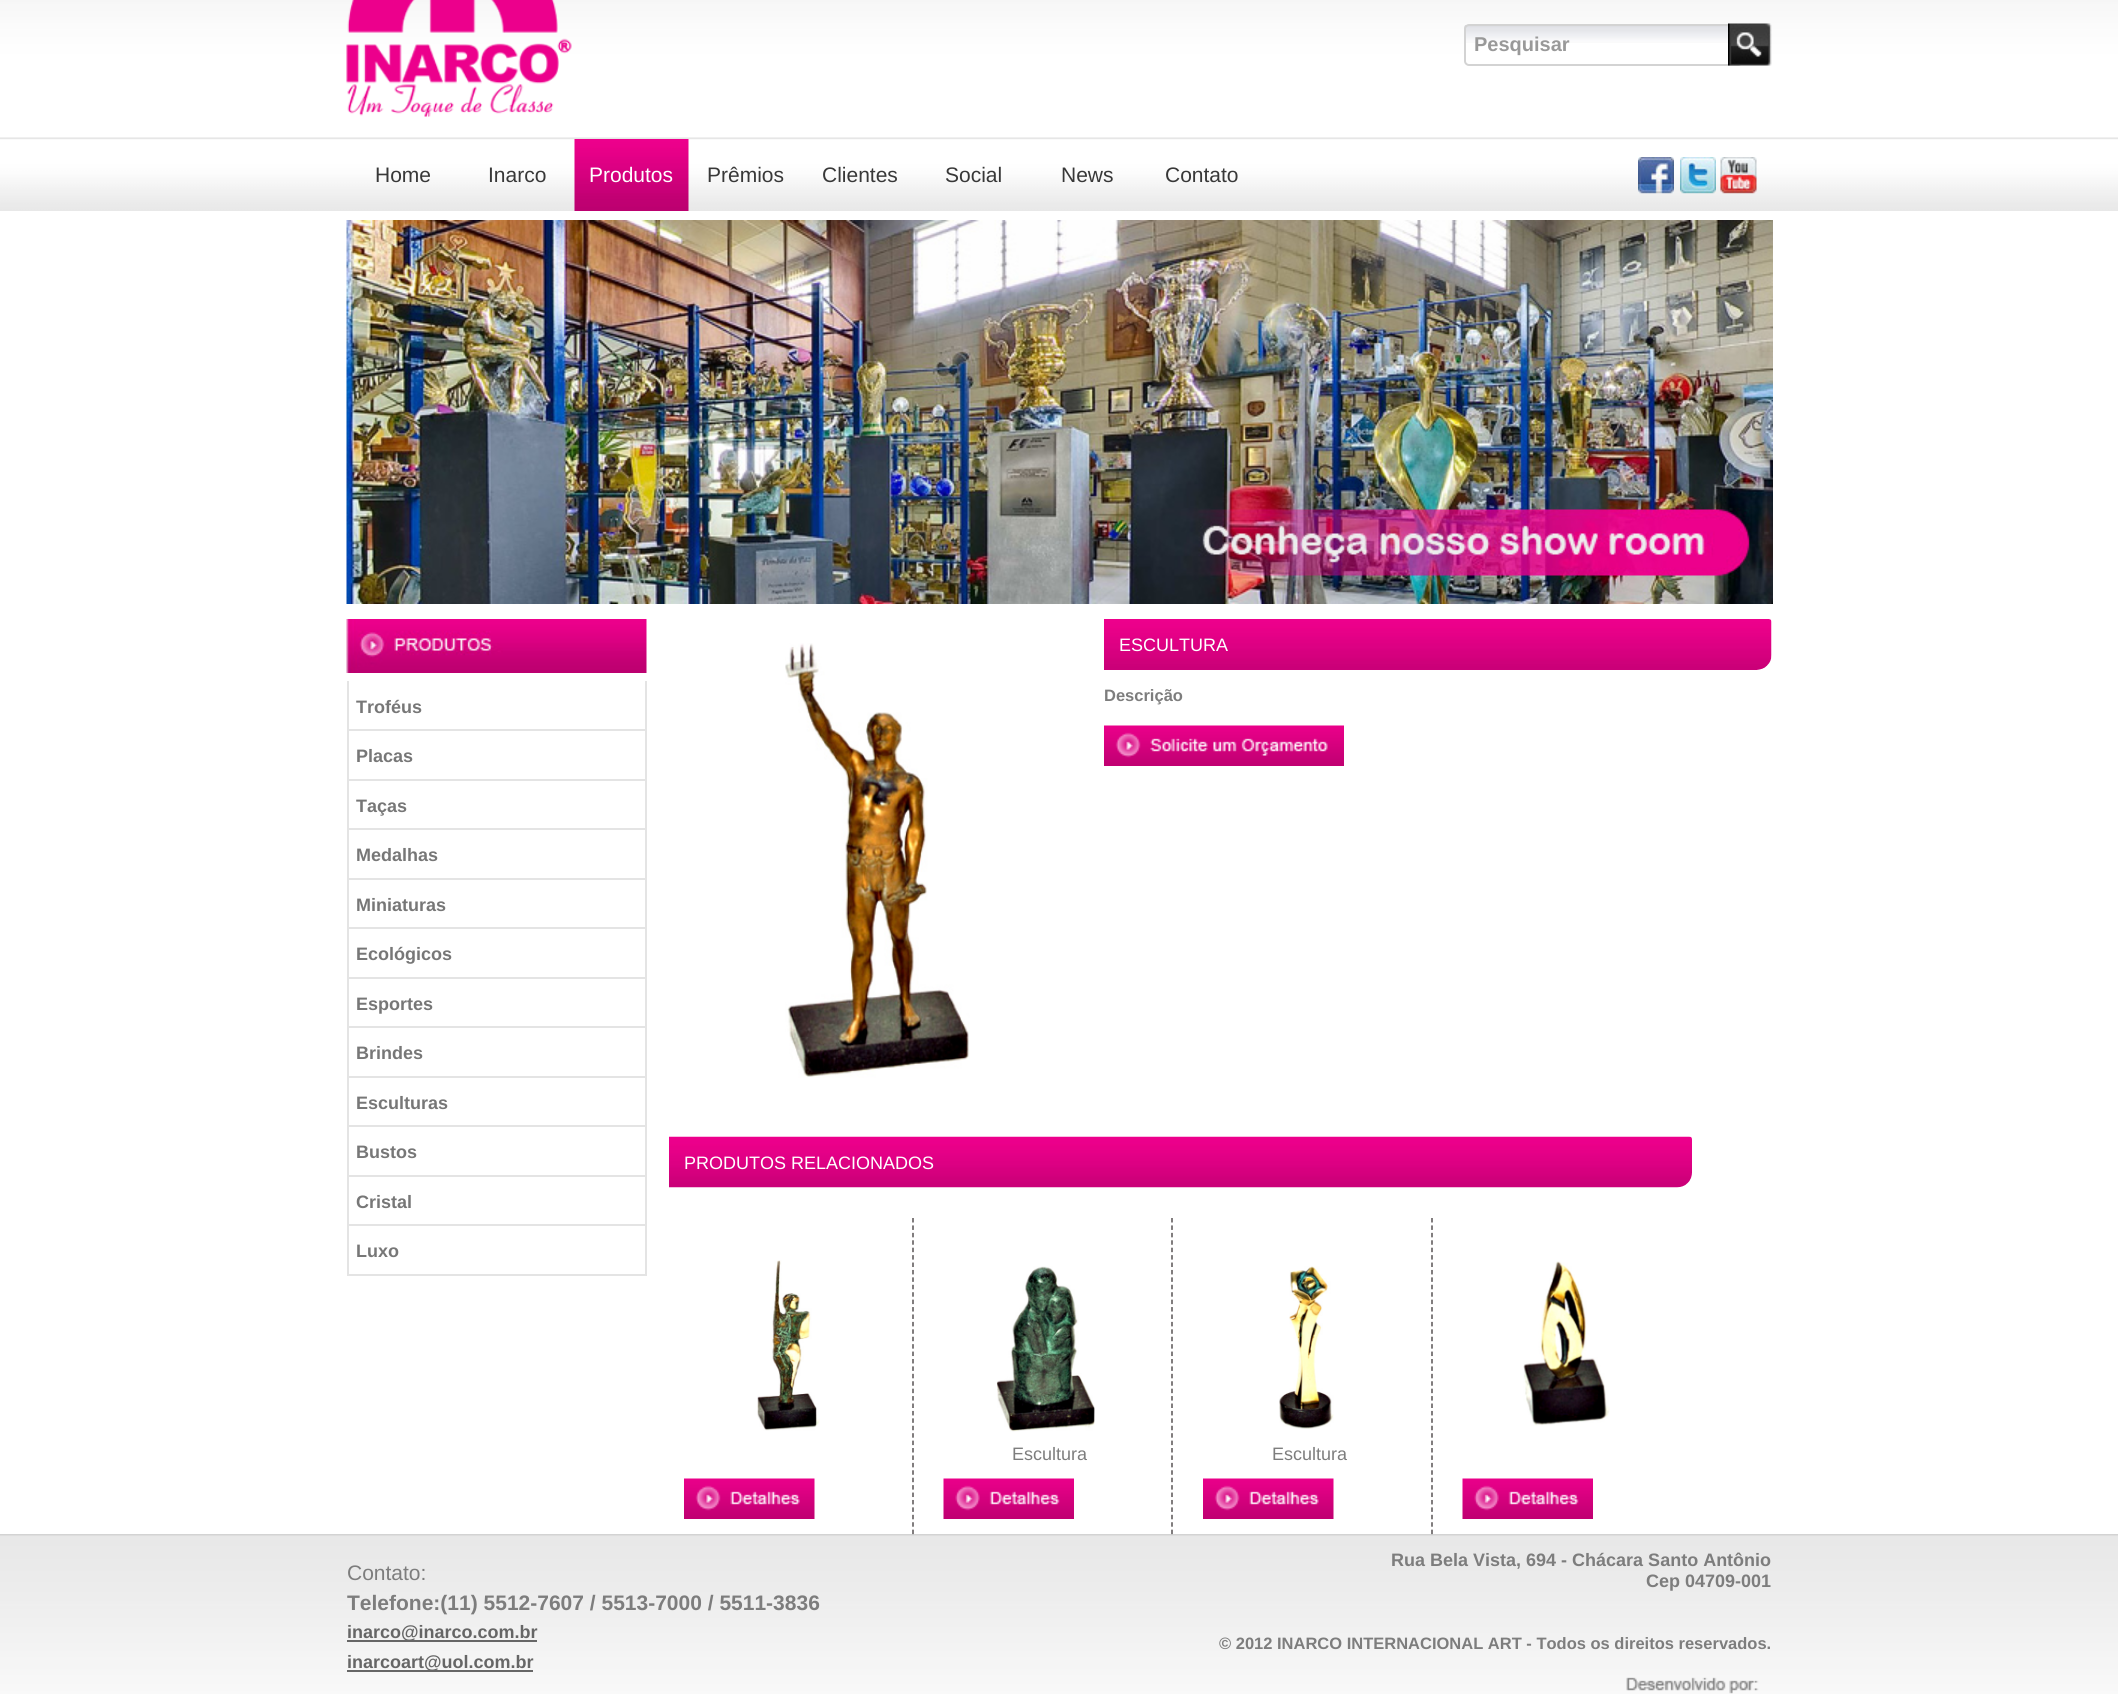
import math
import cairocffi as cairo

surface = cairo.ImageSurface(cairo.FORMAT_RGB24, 2118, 1694)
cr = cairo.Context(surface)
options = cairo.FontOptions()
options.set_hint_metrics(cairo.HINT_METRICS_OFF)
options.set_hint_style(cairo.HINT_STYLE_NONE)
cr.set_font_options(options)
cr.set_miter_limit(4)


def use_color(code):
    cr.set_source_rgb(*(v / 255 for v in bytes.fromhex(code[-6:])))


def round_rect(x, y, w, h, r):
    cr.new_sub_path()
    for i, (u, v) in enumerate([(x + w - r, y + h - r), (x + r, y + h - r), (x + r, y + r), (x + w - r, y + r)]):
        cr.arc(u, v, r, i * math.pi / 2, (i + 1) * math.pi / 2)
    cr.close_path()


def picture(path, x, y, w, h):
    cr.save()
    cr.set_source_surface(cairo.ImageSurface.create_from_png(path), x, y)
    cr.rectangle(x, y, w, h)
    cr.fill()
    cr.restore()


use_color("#ffffff")
cr.paint()
picture("img1.png", 0, 0, 2118, 211)
picture("img2.png", 346, 0, 226, 117)
use_color("#ffffff")
round_rect(1464, 24, 279, 42, 5)
cr.fill()
picture("img3.png", 1464, 25, 264, 18)
round_rect(1465, 25, 277, 40, 4)
use_color("#d3d3d3")
cr.stroke()
cr.select_font_face("Liberation Sans", cairo.FONT_SLANT_NORMAL, cairo.FONT_WEIGHT_BOLD)
cr.set_font_size(20)
use_color("#999999")
cr.move_to(1474, 51)
cr.show_text("Pesquisar")
picture("img4.png", 1728, 23, 44, 43)
cr.select_font_face("Liberation Sans")
cr.set_font_size(21)
use_color("#383838")
cr.move_to(375, 182)
cr.show_text("Home")
cr.move_to(488, 182)
cr.show_text("Inarco")
picture("img5.png", 574, 139, 115, 72)
use_color("#ffffff")
cr.move_to(589, 182)
cr.show_text("Produtos")
use_color("#383838")
cr.move_to(707, 182)
cr.show_text("Prêmios")
cr.move_to(822, 182)
cr.show_text("Clientes")
cr.move_to(945, 182)
cr.show_text("Social")
cr.move_to(1061, 182)
cr.show_text("News")
cr.move_to(1165, 182)
cr.show_text("Contato")
picture("img6.png", 1638, 157, 36, 37)
picture("img7.png", 1680, 157, 36, 37)
picture("img8.png", 1720, 157, 37, 37)
picture("img9.png", 346, 220, 1427, 384)
picture("img10.png", 346, 619, 301, 54)
use_color("#e4e4e4")
cr.rectangle(645, 681, 2, 99)
cr.fill()
cr.rectangle(347, 729, 300, 2)
cr.fill()
cr.rectangle(347, 681, 2, 50)
cr.fill()
cr.select_font_face("Liberation Sans", cairo.FONT_SLANT_NORMAL, cairo.FONT_WEIGHT_BOLD)
cr.set_font_size(18)
use_color("#777777")
cr.move_to(356, 713)
cr.show_text("Troféus")
use_color("#e4e4e4")
cr.rectangle(347, 779, 300, 2)
cr.fill()
cr.rectangle(347, 731, 2, 49)
cr.fill()
use_color("#777777")
cr.move_to(356, 762)
cr.show_text("Placas")
use_color("#e4e4e4")
cr.rectangle(645, 780, 2, 99)
cr.fill()
cr.rectangle(347, 828, 300, 2)
cr.fill()
cr.rectangle(347, 780, 2, 50)
cr.fill()
use_color("#777777")
cr.move_to(356, 812)
cr.show_text("Taças")
use_color("#e4e4e4")
cr.rectangle(347, 878, 300, 2)
cr.fill()
cr.rectangle(347, 830, 2, 49)
cr.fill()
use_color("#777777")
cr.move_to(356, 861)
cr.show_text("Medalhas")
use_color("#e4e4e4")
cr.rectangle(645, 879, 2, 99)
cr.fill()
cr.rectangle(347, 927, 300, 2)
cr.fill()
cr.rectangle(347, 879, 2, 50)
cr.fill()
use_color("#777777")
cr.move_to(356, 911)
cr.show_text("Miniaturas")
use_color("#e4e4e4")
cr.rectangle(347, 977, 300, 2)
cr.fill()
cr.rectangle(347, 929, 2, 49)
cr.fill()
use_color("#777777")
cr.move_to(356, 960)
cr.show_text("Ecológicos")
use_color("#e4e4e4")
cr.rectangle(645, 978, 2, 99)
cr.fill()
cr.rectangle(347, 1026, 300, 2)
cr.fill()
cr.rectangle(347, 978, 2, 50)
cr.fill()
use_color("#777777")
cr.move_to(356, 1010)
cr.show_text("Esportes")
use_color("#e4e4e4")
cr.rectangle(347, 1076, 300, 2)
cr.fill()
cr.rectangle(347, 1028, 2, 49)
cr.fill()
use_color("#777777")
cr.move_to(356, 1059)
cr.show_text("Brindes")
use_color("#e4e4e4")
cr.rectangle(645, 1077, 2, 99)
cr.fill()
cr.rectangle(347, 1125, 300, 2)
cr.fill()
cr.rectangle(347, 1077, 2, 50)
cr.fill()
use_color("#777777")
cr.move_to(356, 1109)
cr.show_text("Esculturas")
use_color("#e4e4e4")
cr.rectangle(347, 1175, 300, 2)
cr.fill()
cr.rectangle(347, 1127, 2, 49)
cr.fill()
use_color("#777777")
cr.move_to(356, 1158)
cr.show_text("Bustos")
use_color("#e4e4e4")
cr.rectangle(645, 1176, 2, 99)
cr.fill()
cr.rectangle(347, 1224, 300, 2)
cr.fill()
cr.rectangle(347, 1176, 2, 50)
cr.fill()
use_color("#777777")
cr.move_to(356, 1208)
cr.show_text("Cristal")
use_color("#e4e4e4")
cr.rectangle(347, 1274, 300, 2)
cr.fill()
cr.rectangle(347, 1226, 2, 49)
cr.fill()
use_color("#777777")
cr.move_to(356, 1257)
cr.show_text("Luxo")
picture("img11.png", 785, 643, 185, 435)
picture("img12.png", 1104, 619, 668, 51)
cr.select_font_face("Liberation Sans")
use_color("#ffffff")
cr.move_to(1119, 651)
cr.show_text("ESCULTURA")
cr.select_font_face("Liberation Sans", cairo.FONT_SLANT_NORMAL, cairo.FONT_WEIGHT_BOLD)
cr.set_font_size(16.5)
use_color("#7d7d7d")
cr.move_to(1104, 701)
cr.show_text("Descrição")
picture("img13.png", 1104, 725, 240, 41)
picture("img14.png", 669, 1136, 1023, 52)
cr.select_font_face("Liberation Sans")
cr.set_font_size(18)
use_color("#ffffff")
cr.move_to(684, 1169)
cr.show_text("PRODUTOS RELACIONADOS")
picture("img15.png", 757, 1260, 63, 171)
picture("img16.png", 684, 1478, 131, 41)
picture("img23.png", 0, 1534, 2118, 160)
cr.new_path()
cr.move_to(913, 1218)
cr.line_to(913, 1534.5)
use_color("#575354")
cr.set_line_width(1.5)
cr.set_dash([4.5, 2.92])
cr.stroke()
picture("img17.png", 996, 1266, 99, 166)
use_color("#7d7d7d")
cr.move_to(1012, 1460)
cr.show_text("Escultura")
picture("img18.png", 943, 1478, 131, 41)
cr.new_path()
cr.move_to(1172, 1218)
cr.line_to(1172, 1534.5)
use_color("#575354")
cr.stroke()
picture("img19.png", 1279, 1266, 55, 163)
use_color("#7d7d7d")
cr.move_to(1272, 1460)
cr.show_text("Escultura")
picture("img20.png", 1203, 1478, 131, 41)
cr.new_path()
cr.move_to(1432, 1218)
cr.line_to(1432, 1534.5)
use_color("#575354")
cr.stroke()
picture("img21.png", 1523, 1261, 87, 165)
picture("img22.png", 1462, 1478, 131, 41)
cr.set_font_size(21)
use_color("#7d7d7d")
cr.move_to(347, 1580)
cr.show_text("Contato:")
cr.select_font_face("Liberation Sans", cairo.FONT_SLANT_NORMAL, cairo.FONT_WEIGHT_BOLD)
cr.move_to(347, 1610)
cr.show_text("Telefone:(11) 5512-7607 / 5513-7000 / 5511-3836")
use_color("#666666")
cr.rectangle(347, 1640, 190, 2)
cr.fill()
cr.set_font_size(18)
cr.move_to(347, 1638)
cr.show_text("inarco@inarco.com.br")
cr.rectangle(347, 1670, 186, 2)
cr.fill()
cr.move_to(347, 1668)
cr.show_text("inarcoart@uol.com.br")
use_color("#7d7d7d")
cr.move_to(1391, 1566)
cr.show_text("Rua Bela Vista, 694 - Chácara Santo Antônio")
cr.move_to(1646, 1587)
cr.show_text("Cep 04709-001")
cr.set_font_size(16.5)
cr.move_to(1219, 1649)
cr.show_text("© 2012 INARCO INTERNACIONAL ART - Todos os direitos reservados.")
picture("img24.png", 1626, 1677, 133, 17)
surface.write_to_png("result.png")
